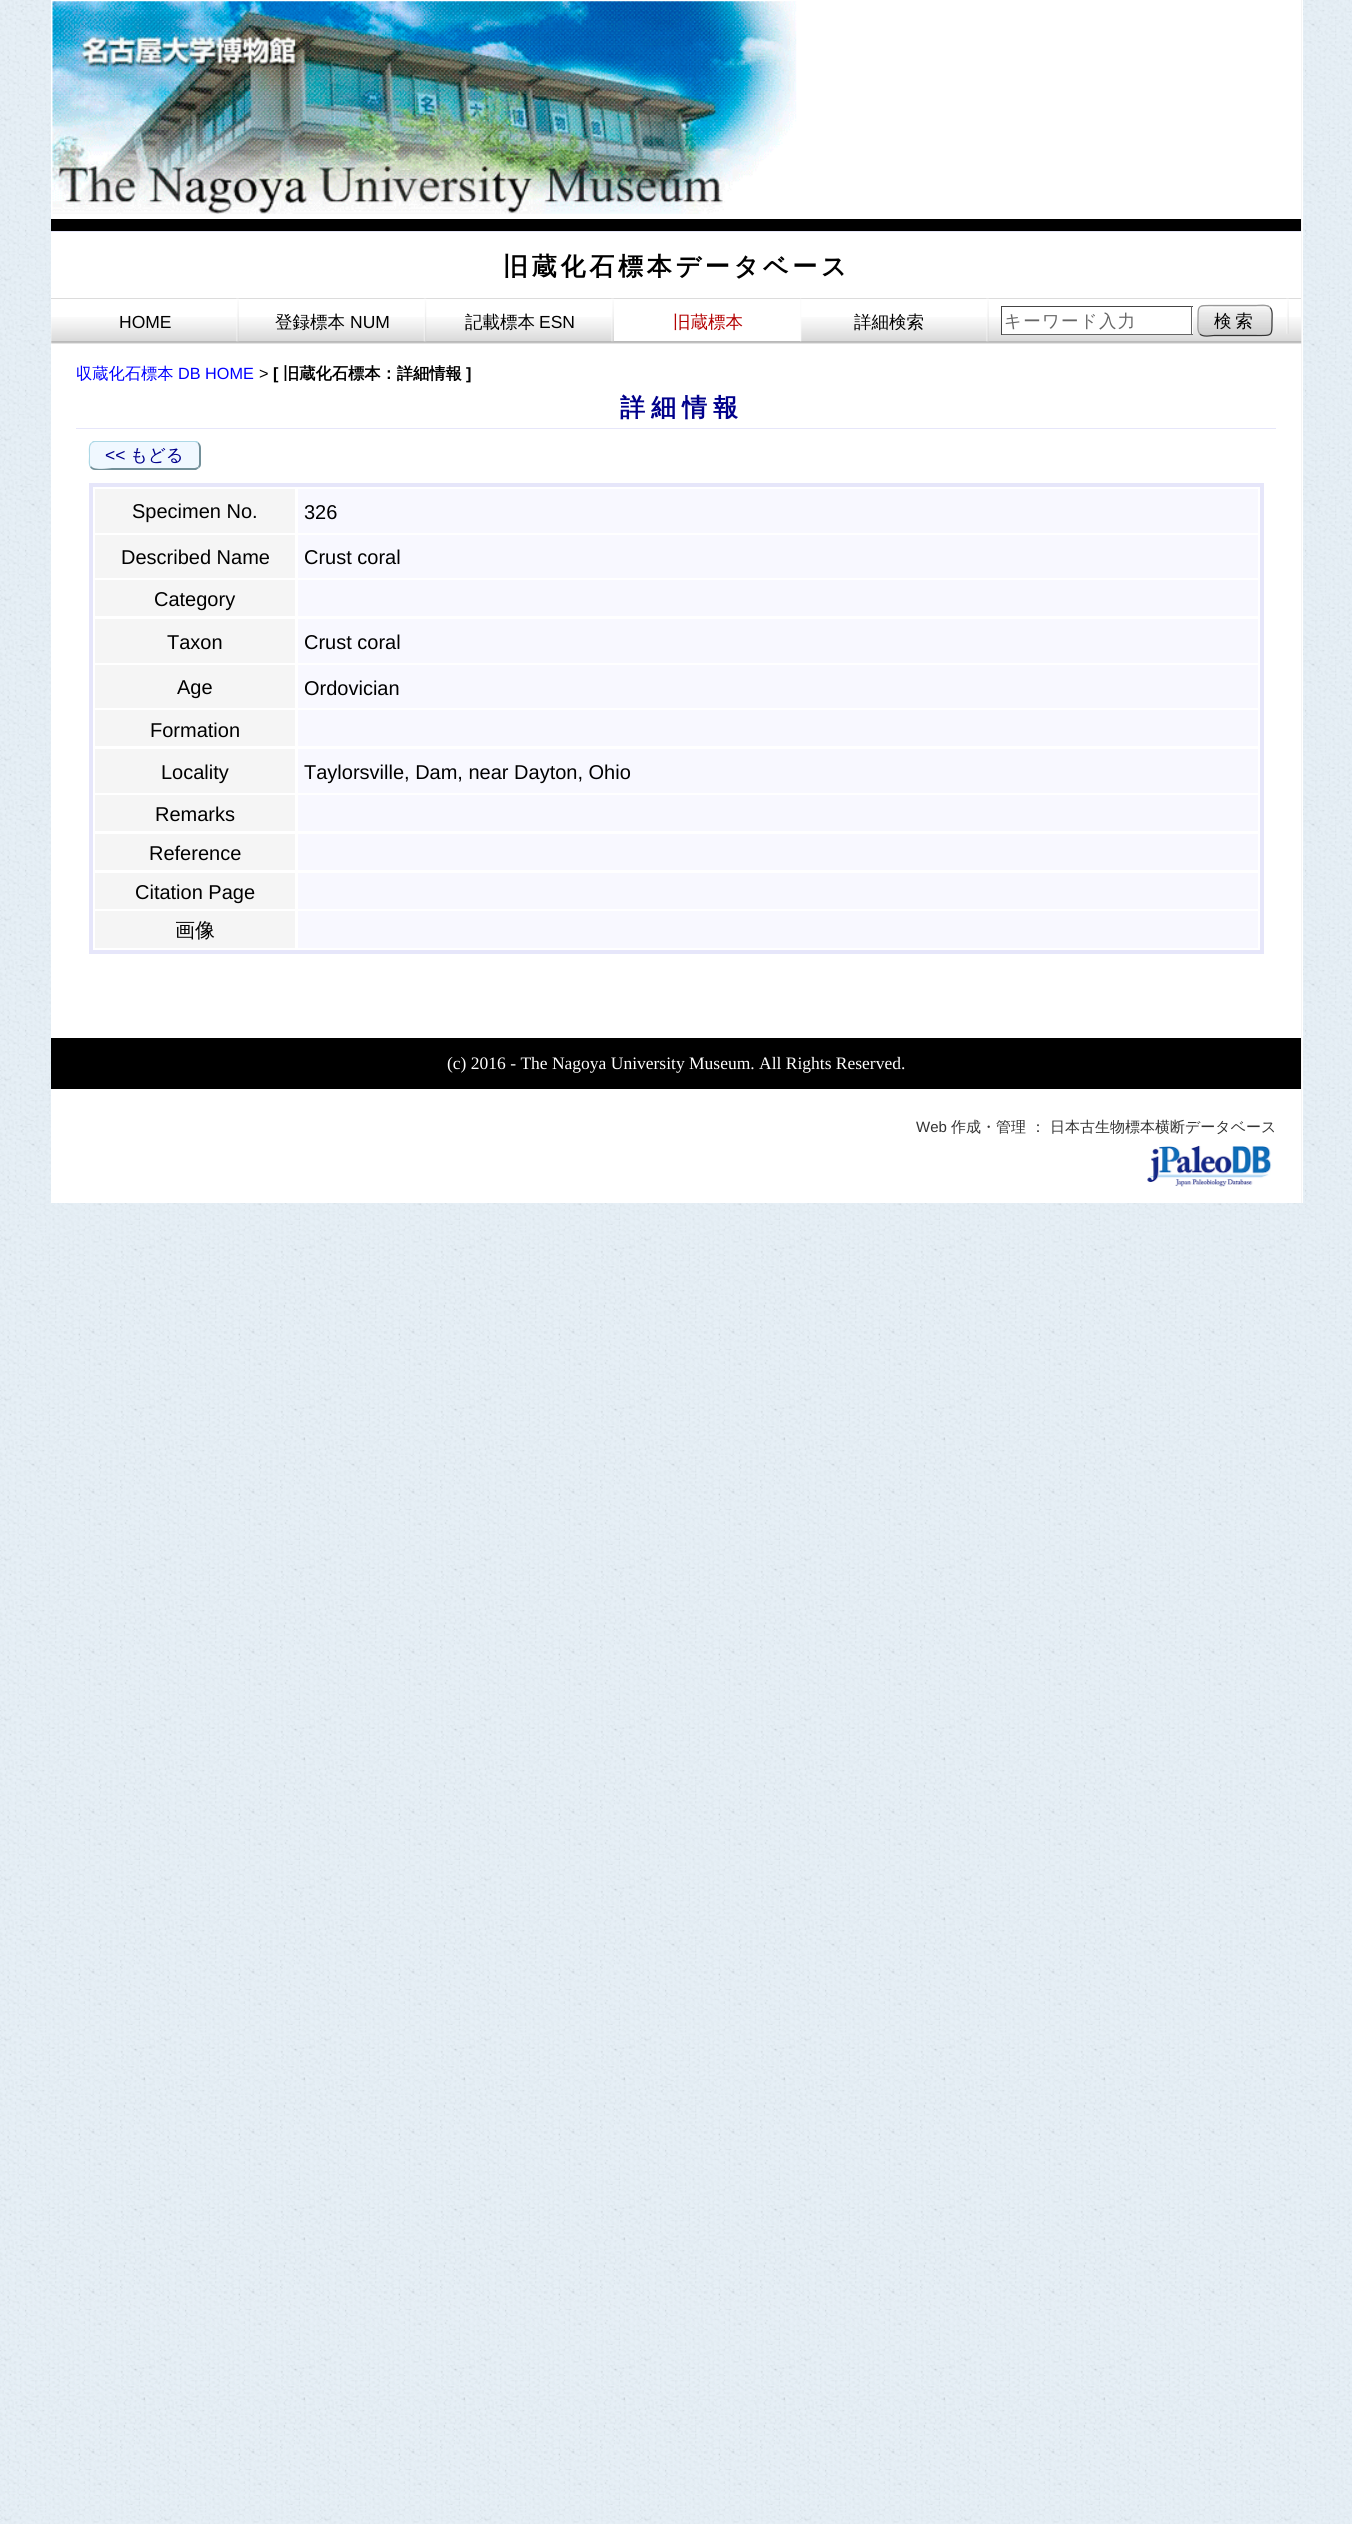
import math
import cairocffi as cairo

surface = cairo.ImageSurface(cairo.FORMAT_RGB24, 1352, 2524)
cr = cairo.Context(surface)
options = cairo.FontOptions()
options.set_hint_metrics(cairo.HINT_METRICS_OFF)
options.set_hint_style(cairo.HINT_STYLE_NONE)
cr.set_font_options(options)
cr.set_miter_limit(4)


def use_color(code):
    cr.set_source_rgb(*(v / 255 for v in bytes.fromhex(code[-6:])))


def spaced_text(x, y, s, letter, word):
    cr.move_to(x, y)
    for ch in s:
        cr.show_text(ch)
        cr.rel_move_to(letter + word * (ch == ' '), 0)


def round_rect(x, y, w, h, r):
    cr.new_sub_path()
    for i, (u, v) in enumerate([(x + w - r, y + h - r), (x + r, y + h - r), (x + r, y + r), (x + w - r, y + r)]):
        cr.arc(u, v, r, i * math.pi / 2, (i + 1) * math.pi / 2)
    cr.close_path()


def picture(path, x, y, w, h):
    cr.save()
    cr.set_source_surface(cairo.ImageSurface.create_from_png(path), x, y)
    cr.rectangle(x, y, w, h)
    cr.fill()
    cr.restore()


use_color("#ffffff")
cr.paint()
picture("img1.png", 0, 0, 1352, 2524)
use_color("#ffffff")
cr.rectangle(51, 0, 1252, 1203)
cr.fill()
use_color("#f5f5f5")
cr.rectangle(1301, 0, 1, 1203)
cr.fill()
picture("img2.png", 52, 1, 745, 213)
use_color("#000000")
cr.rectangle(51, 219, 1250, 12)
cr.fill()
use_color("#e6e6fa")
cr.rectangle(51, 231, 1250, 1)
cr.fill()
cr.select_font_face("WenQuanYi Zen Hei", cairo.FONT_SLANT_NORMAL, cairo.FONT_WEIGHT_BOLD)
cr.set_font_size(25)
use_color("#000000")
spaced_text(503, 275, "旧蔵化石標本データベース", 3.75, 0)
picture("img3.png", 51, 317, 1251, 27)
use_color("#dcdcdc")
cr.rectangle(51, 298, 1250, 1)
cr.fill()
picture("img4.png", 236, 298, 3, 44)
cr.select_font_face("Liberation Sans")
cr.set_font_size(17.5)
use_color("#000000")
cr.move_to(119, 328)
cr.show_text("HOME")
picture("img5.png", 423, 298, 4, 44)
cr.select_font_face("WenQuanYi Zen Hei Medium")
cr.move_to(275, 328)
cr.show_text("登録標本")
cr.select_font_face("Liberation Sans")
cr.move_to(350, 328)
cr.show_text("NUM")
picture("img4.png", 611, 298, 3, 44)
cr.select_font_face("WenQuanYi Zen Hei Medium")
cr.move_to(465, 328)
cr.show_text("記載標本")
cr.select_font_face("Liberation Sans")
cr.move_to(539, 328)
cr.show_text("ESN")
use_color("#ffffff")
cr.rectangle(614, 317, 186, 24)
cr.fill()
picture("img6.png", 800, 298, 2, 44)
cr.select_font_face("WenQuanYi Zen Hei Medium")
use_color("#b30000")
cr.move_to(673, 328)
cr.show_text("旧蔵標本")
picture("img4.png", 986, 298, 3, 44)
use_color("#000000")
cr.move_to(854, 328)
cr.show_text("詳細検索")
picture("img7.png", 1286, 298, 3, 36)
use_color("#ffffff")
cr.rectangle(1002, 317, 191, 17)
cr.fill()
use_color("#444444")
cr.rectangle(1001, 306, 192, 1)
cr.fill()
use_color("#666666")
cr.rectangle(1191, 306, 1, 29)
cr.fill()
cr.rectangle(1001, 334, 192, 1)
cr.fill()
use_color("#444444")
cr.rectangle(1001, 306, 1, 29)
cr.fill()
use_color("#666666")
spaced_text(1004, 327, "キーワード入力", 1.25, 0)
picture("img8.png", 1197, 305, 76, 31)
cr.new_path()
cr.move_to(1270, 307.5)
cr.curve_to(1273, 310.5, 1272, 317, 1272, 320.5)
cr.curve_to(1272, 336.5, 1272.5, 335.5, 1256, 335.5)
cr.line_to(1214, 335.5)
cr.curve_to(1211.5, 335.5, 1203, 337.5, 1200, 334)
use_color("#333333")
cr.set_line_width(1.2)
cr.stroke()
cr.new_path()
cr.move_to(1200, 334)
cr.curve_to(1197, 331, 1198, 324.5, 1198, 320.5)
cr.curve_to(1198, 304.5, 1197.5, 305.5, 1214, 305.5)
cr.line_to(1256, 305.5)
cr.curve_to(1258.5, 305.5, 1267, 304, 1270, 307.5)
use_color("#999999")
cr.stroke()
use_color("#000000")
spaced_text(1214, 327, "検索", 3.75, 0)
cr.set_font_size(16.25)
use_color("#0000ff")
cr.move_to(76, 379)
cr.show_text("収蔵化石標本")
cr.select_font_face("Liberation Sans")
cr.move_to(178, 379)
cr.show_text("DB HOME")
use_color("#000000")
cr.move_to(259, 379)
cr.show_text(">")
cr.select_font_face("Liberation Sans", cairo.FONT_SLANT_NORMAL, cairo.FONT_WEIGHT_BOLD)
cr.move_to(273, 379)
cr.show_text("[")
cr.select_font_face("WenQuanYi Zen Hei", cairo.FONT_SLANT_NORMAL, cairo.FONT_WEIGHT_BOLD)
cr.move_to(283, 379)
cr.show_text("旧蔵化石標本：詳細情報")
cr.select_font_face("Liberation Sans", cairo.FONT_SLANT_NORMAL, cairo.FONT_WEIGHT_BOLD)
cr.move_to(466, 379)
cr.show_text("]")
use_color("#e6e6fa")
cr.rectangle(76, 428, 1200, 1)
cr.fill()
cr.select_font_face("WenQuanYi Zen Hei", cairo.FONT_SLANT_NORMAL, cairo.FONT_WEIGHT_BOLD)
cr.set_font_size(25)
use_color("#00008b")
spaced_text(620, 416, "詳細情報", 6, 0)
use_color("#f0f8ff")
round_rect(89, 441, 112, 29, 6)
cr.fill()
use_color("#add8e6")
cr.new_path()
cr.move_to(95, 442)
cr.curve_to(94, 442, 92, 443, 91, 444)
cr.line_to(91, 443)
cr.line_to(93, 441)
cr.line_to(197, 441)
cr.line_to(199, 443)
cr.line_to(197, 443)
cr.line_to(195, 442)
cr.close_path()
cr.fill()
use_color("#739099")
cr.new_path()
cr.move_to(198.5, 442.5)
cr.curve_to(200, 444, 201, 445.5, 201, 448)
cr.line_to(201, 464)
cr.curve_to(201, 465.5, 200.5, 467, 199, 468)
cr.line_to(198, 466.5)
cr.curve_to(198.5, 466, 199, 465, 199, 464)
cr.line_to(199, 448)
cr.curve_to(199, 446, 198.5, 444.5, 197.5, 443)
cr.close_path()
cr.fill()
cr.new_path()
cr.move_to(95, 470)
cr.line_to(196, 470)
cr.line_to(199, 468)
cr.line_to(198, 467)
cr.line_to(195, 468)
cr.line_to(112, 468)
cr.curve_to(110, 468, 94, 471, 91, 466)
cr.line_to(90, 467)
cr.curve_to(91, 469, 93, 470, 95, 470)
cr.close_path()
cr.fill()
use_color("#add8e6")
cr.new_path()
cr.move_to(90, 467)
cr.curve_to(88, 464.5, 89, 459, 89, 456)
cr.curve_to(89, 452, 88, 446.5, 90.5, 443)
cr.line_to(91.5, 444)
cr.curve_to(90.5, 445, 90, 446.5, 90, 448)
cr.line_to(90, 464)
cr.curve_to(90, 464.5, 90.5, 465.5, 90.5, 466)
cr.close_path()
cr.fill()
cr.select_font_face("Liberation Sans")
cr.set_font_size(17.5)
use_color("#00008b")
cr.move_to(105, 461)
cr.show_text("<<")
cr.select_font_face("WenQuanYi Zen Hei Medium")
cr.move_to(130, 461)
cr.show_text("もどる")
cr.rectangle(91, 485, 1171, 467)
use_color("#e6e6fa")
cr.set_line_width(4)
cr.stroke()
use_color("#f5f5f5")
cr.rectangle(95, 489, 200, 44)
cr.fill()
cr.select_font_face("Liberation Sans")
cr.set_font_size(20)
use_color("#000000")
cr.move_to(132, 518)
cr.show_text("Specimen No.")
use_color("#f8f8ff")
cr.rectangle(298, 489, 960, 44)
cr.fill()
use_color("#000000")
cr.move_to(304, 519)
cr.show_text("326")
use_color("#f5f5f5")
cr.rectangle(95, 535, 200, 43)
cr.fill()
use_color("#000000")
cr.move_to(121, 564)
cr.show_text("Described Name")
use_color("#f8f8ff")
cr.rectangle(298, 535, 960, 43)
cr.fill()
use_color("#000000")
cr.move_to(304, 564)
cr.show_text("Crust coral")
use_color("#f5f5f5")
cr.rectangle(95, 580, 200, 36)
cr.fill()
use_color("#000000")
cr.move_to(154, 606)
cr.show_text("Category")
use_color("#f8f8ff")
cr.rectangle(298, 580, 960, 36)
cr.fill()
use_color("#f5f5f5")
cr.rectangle(95, 619, 200, 44)
cr.fill()
use_color("#000000")
cr.move_to(167, 649)
cr.show_text("Taxon")
use_color("#f8f8ff")
cr.rectangle(298, 619, 960, 44)
cr.fill()
use_color("#000000")
cr.move_to(304, 649)
cr.show_text("Crust coral")
use_color("#f5f5f5")
cr.rectangle(95, 665, 200, 43)
cr.fill()
use_color("#000000")
cr.move_to(177, 694)
cr.show_text("Age")
use_color("#f8f8ff")
cr.rectangle(298, 665, 960, 43)
cr.fill()
use_color("#000000")
cr.move_to(304, 695)
cr.show_text("Ordovician")
use_color("#f5f5f5")
cr.rectangle(95, 710, 200, 36)
cr.fill()
use_color("#000000")
cr.move_to(150, 737)
cr.show_text("Formation")
use_color("#f8f8ff")
cr.rectangle(298, 710, 960, 36)
cr.fill()
use_color("#f5f5f5")
cr.rectangle(95, 749, 200, 44)
cr.fill()
use_color("#000000")
cr.move_to(161, 779)
cr.show_text("Locality")
use_color("#f8f8ff")
cr.rectangle(298, 749, 960, 44)
cr.fill()
use_color("#000000")
cr.move_to(304, 779)
cr.show_text("Taylorsville, Dam, near Dayton, Ohio")
use_color("#f5f5f5")
cr.rectangle(95, 795, 200, 36)
cr.fill()
use_color("#000000")
cr.move_to(155, 821)
cr.show_text("Remarks")
use_color("#f8f8ff")
cr.rectangle(298, 795, 960, 36)
cr.fill()
use_color("#f5f5f5")
cr.rectangle(95, 834, 200, 36)
cr.fill()
use_color("#000000")
cr.move_to(149, 860)
cr.show_text("Reference")
use_color("#f8f8ff")
cr.rectangle(298, 834, 960, 36)
cr.fill()
use_color("#f5f5f5")
cr.rectangle(95, 873, 200, 36)
cr.fill()
use_color("#000000")
cr.move_to(135, 899)
cr.show_text("Citation Page")
use_color("#f8f8ff")
cr.rectangle(298, 873, 960, 36)
cr.fill()
use_color("#f5f5f5")
cr.rectangle(95, 911, 200, 37)
cr.fill()
cr.select_font_face("WenQuanYi Zen Hei Medium")
use_color("#000000")
cr.move_to(175, 937)
cr.show_text("画像")
use_color("#f8f8ff")
cr.rectangle(298, 911, 960, 37)
cr.fill()
use_color("#000000")
cr.rectangle(51, 1038, 1250, 51)
cr.fill()
cr.select_font_face("Liberation Serif")
cr.set_font_size(17.5)
use_color("#ffffff")
cr.move_to(447, 1069)
cr.show_text("(c) 2016 - The Nagoya University Museum. All Rights Reserved.")
cr.select_font_face("Liberation Sans")
cr.set_font_size(15)
use_color("#333333")
cr.move_to(916, 1132)
cr.show_text("Web")
cr.select_font_face("WenQuanYi Zen Hei Medium")
cr.move_to(951, 1132)
cr.show_text("作成・管理 ： 日本古生物標本横断データベース")
picture("img9.png", 1147, 1145, 125, 42)
surface.write_to_png("result.png")
